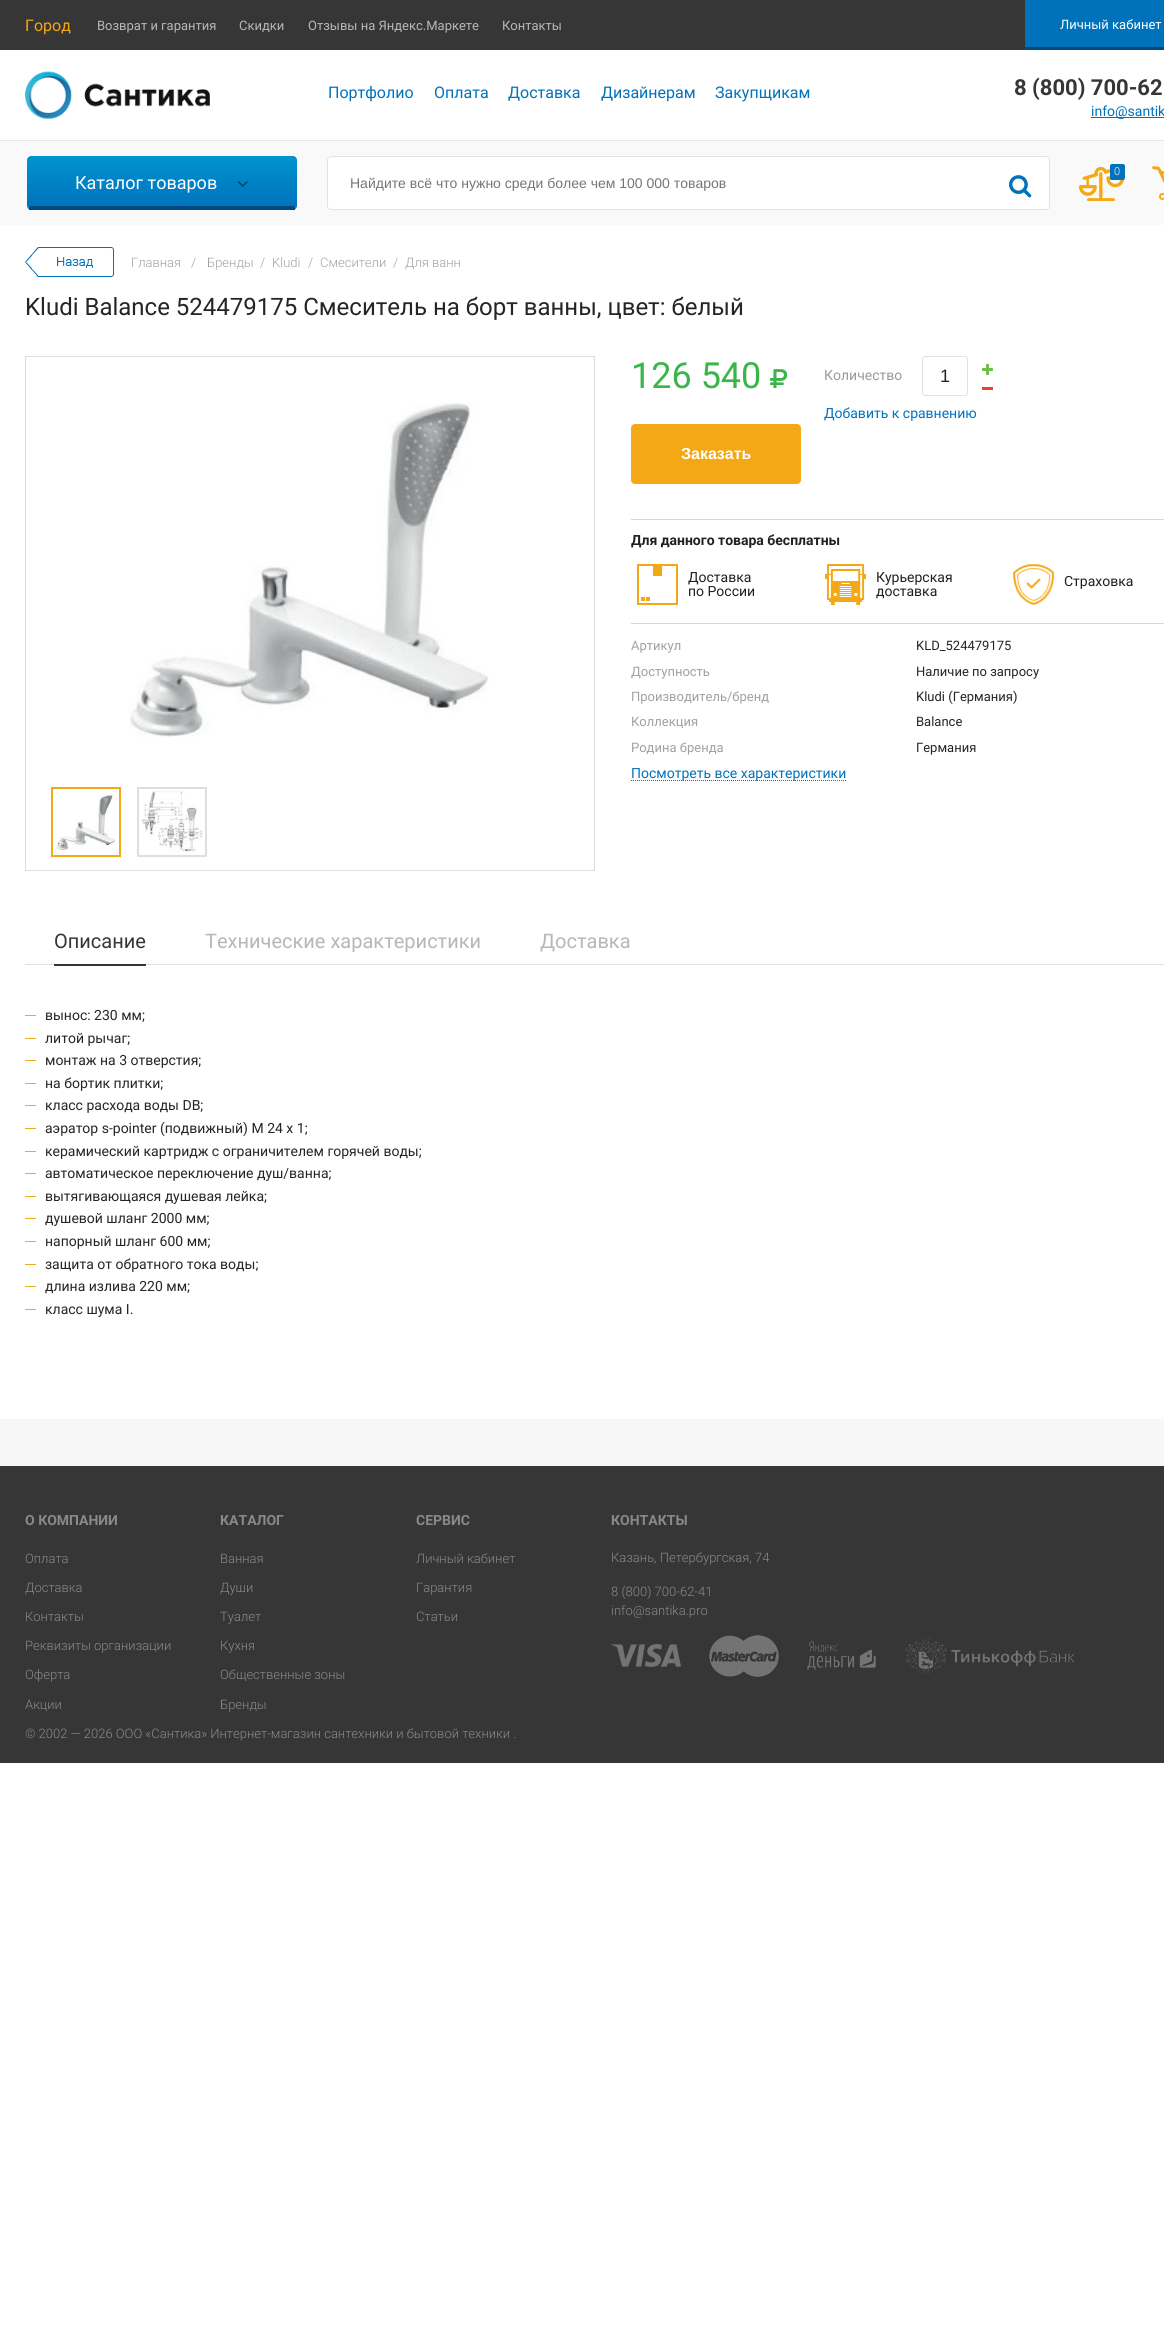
import math
import cairocffi as cairo

surface = cairo.ImageSurface(cairo.FORMAT_RGB24, 1164, 2334)
cr = cairo.Context(surface)
options = cairo.FontOptions()
options.set_hint_metrics(cairo.HINT_METRICS_OFF)
options.set_hint_style(cairo.HINT_STYLE_NONE)
cr.set_font_options(options)
cr.set_miter_limit(4)


def use_color(code):
    cr.set_source_rgb(*(v / 255 for v in bytes.fromhex(code[-6:])))


def round_rect(x, y, w, h, r):
    cr.new_sub_path()
    for i, (u, v) in enumerate([(x + w - r, y + h - r), (x + r, y + h - r), (x + r, y + r), (x + w - r, y + r)]):
        cr.arc(u, v, r, i * math.pi / 2, (i + 1) * math.pi / 2)
    cr.close_path()


def picture(path, x, y, w, h):
    cr.save()
    cr.set_source_surface(cairo.ImageSurface.create_from_png(path), x, y)
    cr.rectangle(x, y, w, h)
    cr.fill()
    cr.restore()


use_color("#ffffff")
cr.paint()
use_color("#363636")
cr.rectangle(0, 0, 1025, 50)
cr.fill()
cr.select_font_face("Roboto")
cr.set_font_size(16)
use_color("#f5a815")
cr.move_to(25, 31)
cr.show_text("Город")
cr.set_font_size(13)
use_color("#b7b7b7")
cr.move_to(97, 30)
cr.show_text("Возврат и гарантия")
cr.move_to(239, 30)
cr.show_text("Скидки")
cr.move_to(308, 30)
cr.show_text("Отзывы на Яндекс.Маркете")
cr.move_to(502, 30)
cr.show_text("Контакты")
use_color("#0072bc")
cr.rectangle(1025, 0, 139, 47)
cr.fill()
use_color("#004a80")
cr.rectangle(1025, 47, 139, 3)
cr.fill()
use_color("#ffffff")
cr.move_to(1060, 29)
cr.show_text("Личный кабинет")
picture("img1.png", 25, 71, 185, 48)
cr.set_font_size(16)
use_color("#0072bc")
cr.move_to(328, 98)
cr.show_text("Портфолио")
cr.move_to(434, 98)
cr.show_text("Оплата")
cr.move_to(508, 98)
cr.show_text("Доставка")
cr.move_to(601, 98)
cr.show_text("Дизайнерам")
cr.move_to(715, 98)
cr.show_text("Закупщикам")
cr.select_font_face("Roboto", cairo.FONT_SLANT_NORMAL, cairo.FONT_WEIGHT_BOLD)
cr.set_font_size(22)
use_color("#363636")
cr.move_to(1014, 95)
cr.show_text("8 (800) 700-62")
use_color("#0072bc")
cr.rectangle(1091, 117, 73, 1)
cr.fill()
cr.select_font_face("Roboto")
cr.set_font_size(14)
cr.move_to(1091, 116)
cr.show_text("info@santik")
use_color("#f9f9f9")
cr.rectangle(0, 141, 1164, 84)
cr.fill()
use_color("#e6e6e6")
cr.rectangle(0, 140, 1164, 1)
cr.fill()
gradient = cairo.LinearGradient(162, 156, 162, 206)
gradient.add_color_stop_rgba(0, 0, 0.58, 0.816, 1)
gradient.add_color_stop_rgba(1, 0, 0.451, 0.741, 1)
cr.set_source(gradient)
cr.new_path()
cr.move_to(31, 156)
cr.line_to(293, 156)
cr.curve_to(295, 156, 297, 158, 297, 160)
cr.line_to(297, 206)
cr.line_to(27, 206)
cr.line_to(27, 160)
cr.curve_to(27, 158, 29, 156, 31, 156)
cr.close_path()
cr.fill()
gradient = cairo.LinearGradient(162, 206, 162, 256)
gradient.add_color_stop_rgba(0, 0, 0.58, 0.816, 1)
gradient.add_color_stop_rgba(1, 0, 0.451, 0.741, 1)
cr.set_source(gradient)
cr.new_path()
cr.move_to(27, 206)
cr.line_to(297, 206)
cr.curve_to(297, 208, 295, 210, 293, 210)
cr.line_to(31, 210)
cr.curve_to(29, 210, 27, 208, 27, 206)
cr.close_path()
cr.fill()
use_color("#004a80")
cr.rectangle(29, 206, 266, 4)
cr.fill()
cr.set_font_size(18)
use_color("#ffffff")
cr.move_to(75, 189)
cr.show_text("Каталог товаров")
picture("img2.png", 237, 181, 11, 6)
picture("img3.png", 1079, 167, 45, 34)
picture("img4.png", 1079, 167, 45, 34)
use_color("#0072bc")
round_rect(1110, 164, 15, 16, 2)
cr.fill()
cr.select_font_face("Roboto Light")
cr.set_font_size(11)
use_color("#ffffff")
cr.move_to(1114, 175)
cr.show_text("0")
picture("img5.png", 1152, 166, 12, 34)
round_rect(327.5, 156.5, 722, 53, 3.5)
cr.fill_preserve()
use_color("#e2e2e2")
cr.set_line_width(1)
cr.stroke()
cr.select_font_face("Liberation Sans")
cr.set_font_size(14)
use_color("#757575")
cr.move_to(350, 188)
cr.show_text("Найдите всё что нужно среди более чем 100 000 товаров")
picture("img6.png", 1009, 175, 23, 23)
picture("img7.png", 25, 247, 89, 30)
cr.select_font_face("Roboto Light")
cr.set_font_size(13)
use_color("#a1a1a1")
cr.move_to(131, 267)
cr.show_text("Главная")
cr.move_to(191, 267)
cr.show_text("/")
cr.move_to(207, 267)
cr.show_text("Бренды")
cr.move_to(260, 267)
cr.show_text("/")
cr.move_to(272, 267)
cr.show_text("Kludi")
cr.move_to(308, 267)
cr.show_text("/")
cr.move_to(320, 267)
cr.show_text("Смесители")
cr.move_to(393, 267)
cr.show_text("/")
cr.move_to(405, 267)
cr.show_text("Для ванн")
cr.select_font_face("Roboto")
cr.set_font_size(24)
use_color("#252525")
cr.move_to(25, 315)
cr.show_text("Kludi Balance 524479175 Смеситель на борт ванны, цвет: белый")
cr.rectangle(25.5, 356.5, 569, 514)
use_color("#dddddd")
cr.stroke()
picture("img8.png", 129, 403, 360, 334)
cr.rectangle(52, 788, 68, 68)
use_color("#f5a815")
cr.set_line_width(2)
cr.stroke()
picture("img9.png", 56, 794, 60, 57)
cr.rectangle(138, 788, 68, 68)
use_color("#dedede")
cr.stroke()
picture("img10.png", 139, 791, 64, 61)
cr.set_font_size(36)
use_color("#39b54a")
cr.move_to(631, 388)
cr.show_text("126 540")
picture("img11.png", 770, 369, 18, 19)
cr.set_font_size(14)
use_color("#9a9a9a")
cr.move_to(824, 380)
cr.show_text("Количество")
round_rect(922.5, 356.5, 45, 39, 2.5)
use_color("#e2e2e2")
cr.set_line_width(1)
cr.stroke()
cr.select_font_face("Liberation Sans")
cr.set_font_size(18)
use_color("#252525")
cr.move_to(940, 382)
cr.show_text("1")
picture("img12.png", 982, 364, 11, 11)
use_color("#ef4123")
cr.rectangle(982, 387, 11, 3)
cr.fill()
cr.select_font_face("Roboto")
cr.set_font_size(14)
use_color("#0072bc")
cr.move_to(824, 418)
cr.show_text("Добавить к сравнению")
use_color("#f5a815")
round_rect(632, 425, 168, 58, 3)
cr.fill_preserve()
cr.set_line_width(2)
cr.stroke()
cr.select_font_face("Liberation Sans", cairo.FONT_SLANT_NORMAL, cairo.FONT_WEIGHT_BOLD)
cr.set_font_size(16)
use_color("#ffffff")
cr.move_to(681, 459)
cr.show_text("Заказать")
use_color("#d7d7d7")
cr.rectangle(631, 519, 533, 1)
cr.fill()
cr.select_font_face("Roboto", cairo.FONT_SLANT_NORMAL, cairo.FONT_WEIGHT_BOLD)
cr.set_font_size(14)
use_color("#231f20")
cr.move_to(631, 545)
cr.show_text("Для данного товара бесплатны")
picture("img13.png", 637, 564, 41, 41)
cr.select_font_face("Roboto")
cr.move_to(688, 582)
cr.show_text("Доставка")
cr.move_to(688, 596)
cr.show_text("по России")
picture("img14.png", 825, 564, 41, 41)
cr.move_to(876, 582)
cr.show_text("Курьерская")
cr.move_to(876, 596)
cr.show_text("доставка")
picture("img15.png", 1013, 564, 41, 41)
cr.move_to(1064, 586)
cr.show_text("Страховка")
use_color("#d7d7d7")
cr.rectangle(631, 623, 533, 1)
cr.fill()
cr.set_font_size(13)
use_color("#a1a1a1")
cr.move_to(631, 650)
cr.show_text("Артикул")
use_color("#252525")
cr.move_to(916, 650)
cr.show_text("KLD_524479175")
use_color("#a1a1a1")
cr.move_to(631, 676)
cr.show_text("Доступность")
use_color("#252525")
cr.move_to(916, 676)
cr.show_text("Наличие по запросу")
use_color("#a1a1a1")
cr.move_to(631, 701)
cr.show_text("Производитель/бренд")
use_color("#252525")
cr.move_to(916, 701)
cr.show_text("Kludi (Германия)")
use_color("#a1a1a1")
cr.move_to(631, 726)
cr.show_text("Коллекция")
use_color("#252525")
cr.move_to(916, 726)
cr.show_text("Balance")
use_color("#a1a1a1")
cr.move_to(631, 752)
cr.show_text("Родина бренда")
use_color("#252525")
cr.move_to(916, 752)
cr.show_text("Германия")
cr.new_path()
cr.move_to(631, 780.5)
cr.line_to(846, 780.5)
use_color("#0072bc")
cr.set_line_width(1)
cr.set_dash([1, 1])
cr.stroke()
cr.set_font_size(14)
cr.move_to(631, 778)
cr.show_text("Посмотреть все характеристики")
use_color("#e2e2e2")
cr.rectangle(25, 964, 1139, 1)
cr.fill()
use_color("#363636")
cr.rectangle(54, 964, 92, 2)
cr.fill()
cr.set_font_size(20)
cr.move_to(54, 948)
cr.show_text("Описание")
use_color("#b7b7b7")
cr.move_to(205, 948)
cr.show_text("Технические характеристики")
cr.move_to(540, 948)
cr.show_text("Доставка")
use_color("#f5a815")
cr.rectangle(25, 1015, 11, 1)
cr.fill()
cr.set_font_size(14)
use_color("#252525")
cr.move_to(45, 1020)
cr.show_text("вынос: 230 мм;")
use_color("#f5a815")
cr.rectangle(25, 1038, 11, 1)
cr.fill()
use_color("#252525")
cr.move_to(45, 1043)
cr.show_text("литой рычаг;")
use_color("#f5a815")
cr.rectangle(25, 1060, 11, 1)
cr.fill()
use_color("#252525")
cr.move_to(45, 1065)
cr.show_text("монтаж на 3 отверстия;")
use_color("#f5a815")
cr.rectangle(25, 1083, 11, 1)
cr.fill()
use_color("#252525")
cr.move_to(45, 1088)
cr.show_text("на бортик плитки;")
use_color("#f5a815")
cr.rectangle(25, 1105, 11, 1)
cr.fill()
use_color("#252525")
cr.move_to(45, 1110)
cr.show_text("класс расхода воды DB;")
use_color("#f5a815")
cr.rectangle(25, 1128, 11, 1)
cr.fill()
use_color("#252525")
cr.move_to(45, 1133)
cr.show_text("аэратор s-pointer (подвижный) M 24 x 1;")
use_color("#f5a815")
cr.rectangle(25, 1151, 11, 1)
cr.fill()
use_color("#252525")
cr.move_to(45, 1156)
cr.show_text("керамический картридж с ограничителем горячей воды;")
use_color("#f5a815")
cr.rectangle(25, 1173, 11, 1)
cr.fill()
use_color("#252525")
cr.move_to(45, 1178)
cr.show_text("автоматическое переключение душ/ванна;")
use_color("#f5a815")
cr.rectangle(25, 1196, 11, 1)
cr.fill()
use_color("#252525")
cr.move_to(45, 1201)
cr.show_text("вытягивающаяся душевая лейка;")
use_color("#f5a815")
cr.rectangle(25, 1218, 11, 1)
cr.fill()
use_color("#252525")
cr.move_to(45, 1223)
cr.show_text("душевой шланг 2000 мм;")
use_color("#f5a815")
cr.rectangle(25, 1241, 11, 1)
cr.fill()
use_color("#252525")
cr.move_to(45, 1246)
cr.show_text("напорный шланг 600 мм;")
use_color("#f5a815")
cr.rectangle(25, 1264, 11, 1)
cr.fill()
use_color("#252525")
cr.move_to(45, 1269)
cr.show_text("защита от обратного тока воды;")
use_color("#f5a815")
cr.rectangle(25, 1286, 11, 1)
cr.fill()
use_color("#252525")
cr.move_to(45, 1291)
cr.show_text("длина излива 220 мм;")
use_color("#f5a815")
cr.rectangle(25, 1309, 11, 1)
cr.fill()
use_color("#252525")
cr.move_to(45, 1314)
cr.show_text("класс шума I.")
use_color("#f7f7f7")
cr.rectangle(0, 1419, 1164, 47)
cr.fill()
use_color("#363636")
cr.rectangle(0, 1466, 1164, 297)
cr.fill()
cr.select_font_face("Roboto", cairo.FONT_SLANT_NORMAL, cairo.FONT_WEIGHT_BOLD)
use_color("#898989")
cr.move_to(25, 1525)
cr.show_text("О КОМПАНИИ")
cr.select_font_face("Roboto Light")
cr.set_font_size(13)
cr.move_to(25, 1563)
cr.show_text("Оплата")
cr.move_to(25, 1592)
cr.show_text("Доставка")
cr.move_to(25, 1621)
cr.show_text("Контакты")
cr.move_to(25, 1650)
cr.show_text("Реквизиты организации")
cr.move_to(25, 1679)
cr.show_text("Оферта")
cr.move_to(25, 1709)
cr.show_text("Акции")
cr.select_font_face("Roboto", cairo.FONT_SLANT_NORMAL, cairo.FONT_WEIGHT_BOLD)
cr.set_font_size(14)
cr.move_to(220, 1525)
cr.show_text("КАТАЛОГ")
cr.select_font_face("Roboto Light")
cr.set_font_size(13)
cr.move_to(220, 1563)
cr.show_text("Ванная")
cr.move_to(220, 1592)
cr.show_text("Души")
cr.move_to(220, 1621)
cr.show_text("Туалет")
cr.move_to(220, 1650)
cr.show_text("Кухня")
cr.move_to(220, 1679)
cr.show_text("Общественные зоны")
cr.move_to(220, 1709)
cr.show_text("Бренды")
cr.select_font_face("Roboto", cairo.FONT_SLANT_NORMAL, cairo.FONT_WEIGHT_BOLD)
cr.set_font_size(14)
cr.move_to(416, 1525)
cr.show_text("СЕРВИС")
cr.select_font_face("Roboto Light")
cr.set_font_size(13)
cr.move_to(416, 1563)
cr.show_text("Личный кабинет")
cr.move_to(416, 1592)
cr.show_text("Гарантия")
cr.move_to(416, 1621)
cr.show_text("Статьи")
cr.select_font_face("Roboto", cairo.FONT_SLANT_NORMAL, cairo.FONT_WEIGHT_BOLD)
cr.set_font_size(14)
cr.move_to(611, 1525)
cr.show_text("КОНТАКТЫ")
cr.select_font_face("Roboto Light")
cr.set_font_size(13)
cr.move_to(611, 1562)
cr.show_text("Казань, Петербургская, 74")
cr.move_to(611, 1596)
cr.show_text("8 (800) 700-62-41")
cr.move_to(611, 1615)
cr.show_text("info@santika.pro")
picture("img16.png", 611, 1644, 70, 23)
picture("img17.png", 709, 1635, 70, 42)
picture("img18.png", 807, 1641, 69, 29)
picture("img19.png", 905, 1637, 170, 37)
cr.move_to(25, 1738)
cr.show_text("© 2002 — 2026 ООО «Сантика» Интернет-магазин сантехники и бытовой техники .")
surface.write_to_png("result.png")
